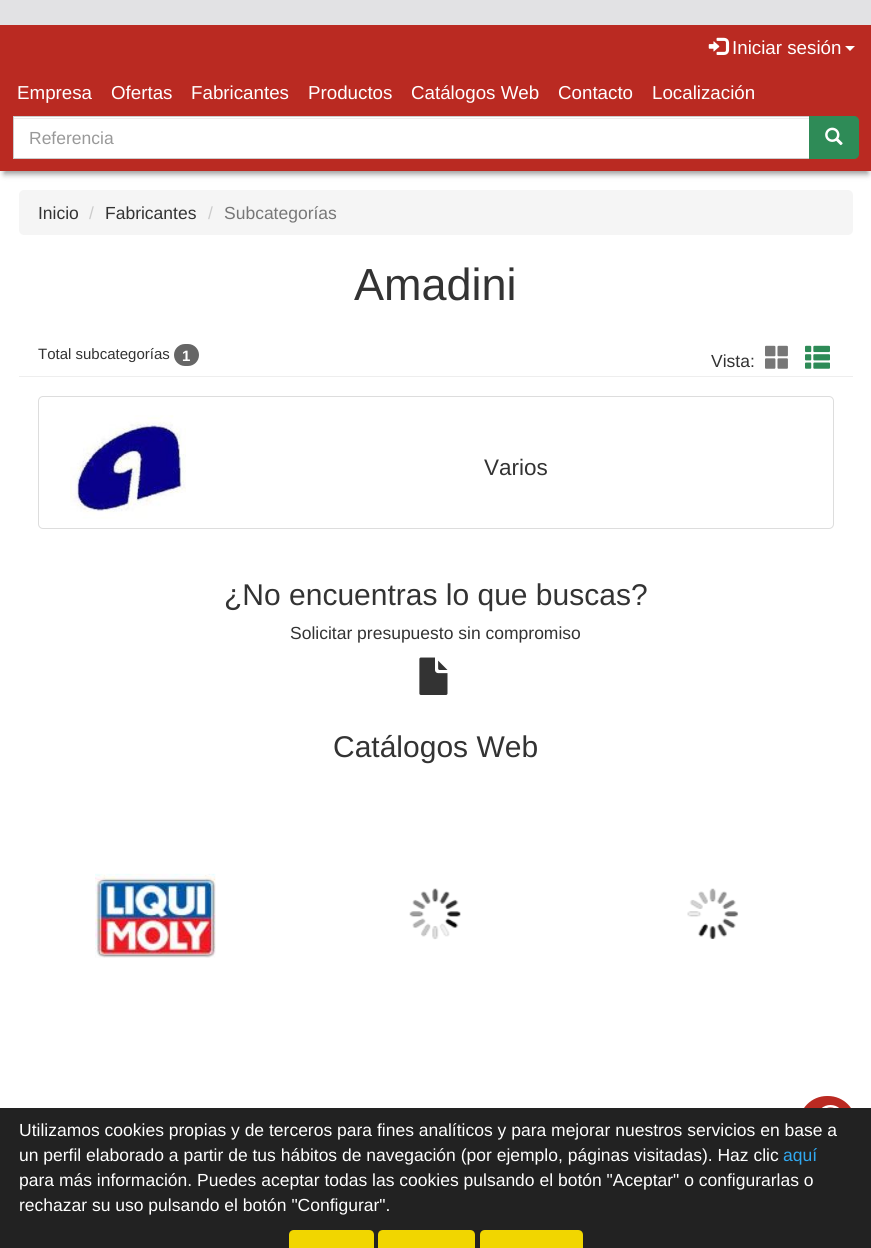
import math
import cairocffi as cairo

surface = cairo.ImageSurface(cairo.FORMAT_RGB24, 871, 1248)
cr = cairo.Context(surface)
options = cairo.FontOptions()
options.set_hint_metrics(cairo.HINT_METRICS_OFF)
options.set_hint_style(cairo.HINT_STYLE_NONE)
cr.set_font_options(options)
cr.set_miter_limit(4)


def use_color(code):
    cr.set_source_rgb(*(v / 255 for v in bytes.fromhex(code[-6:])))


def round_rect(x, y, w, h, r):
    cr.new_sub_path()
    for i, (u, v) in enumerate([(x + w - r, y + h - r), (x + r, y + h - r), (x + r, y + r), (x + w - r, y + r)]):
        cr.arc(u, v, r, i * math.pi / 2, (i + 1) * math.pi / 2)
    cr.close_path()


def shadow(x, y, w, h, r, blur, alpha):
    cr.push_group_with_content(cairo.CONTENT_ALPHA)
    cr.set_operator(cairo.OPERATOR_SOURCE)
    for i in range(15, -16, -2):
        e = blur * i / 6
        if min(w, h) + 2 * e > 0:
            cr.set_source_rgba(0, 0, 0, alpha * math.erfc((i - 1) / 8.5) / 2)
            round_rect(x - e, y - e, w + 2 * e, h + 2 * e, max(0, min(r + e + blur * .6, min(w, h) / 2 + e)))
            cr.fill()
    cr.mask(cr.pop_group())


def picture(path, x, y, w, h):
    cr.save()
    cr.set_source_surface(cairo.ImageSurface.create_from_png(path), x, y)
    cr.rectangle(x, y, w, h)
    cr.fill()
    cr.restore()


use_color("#ffffff")
cr.paint()
use_color("#e2e2e4")
cr.rectangle(0, 0, 871, 25)
cr.fill()
use_color("#ba2a22")
cr.rectangle(0, 25, 871, 91)
cr.fill()
picture("img1.png", 708, 37, 22, 18)
cr.select_font_face("Liberation Sans")
cr.set_font_size(18.75)
use_color("#ffffff")
cr.move_to(732, 54)
cr.show_text("Iniciar sesión")
cr.new_path()
cr.move_to(845, 46)
cr.line_to(855, 46)
cr.line_to(850, 51)
cr.close_path()
cr.fill()
cr.move_to(17, 99)
cr.show_text("Empresa")
cr.move_to(111, 99)
cr.show_text("Ofertas")
cr.move_to(191, 99)
cr.show_text("Fabricantes")
cr.move_to(308, 99)
cr.show_text("Productos")
cr.move_to(411, 99)
cr.show_text("Catálogos Web")
cr.move_to(558, 99)
cr.show_text("Contacto")
cr.move_to(652, 99)
cr.show_text("Localización")
use_color("#000000")
shadow(4, 126, 864, 48, 0, 3, 0.4)
use_color("#ba2a22")
cr.rectangle(0, 116, 871, 55)
cr.fill()
use_color("#ffffff")
cr.rectangle(14, 117, 795, 41)
cr.fill()
use_color("#ececec")
cr.rectangle(14, 118, 795, 1)
cr.fill()
cr.rectangle(13.5, 116.5, 796, 42)
use_color("#cccccc")
cr.set_line_width(1)
cr.stroke()
cr.set_font_size(17.5)
use_color("#999999")
cr.move_to(29, 144)
cr.show_text("Referencia")
use_color("#2e8b57")
cr.new_path()
cr.move_to(809.5, 116.5)
cr.line_to(854, 116.5)
cr.curve_to(856.5, 116.5, 858.5, 118.5, 858.5, 121)
cr.line_to(858.5, 154)
cr.curve_to(858.5, 156.5, 856.5, 158.5, 854, 158.5)
cr.line_to(809.5, 158.5)
cr.close_path()
cr.fill_preserve()
cr.stroke()
picture("img2.png", 825, 127, 18, 19)
use_color("#f5f5f5")
round_rect(19, 190, 834, 45, 5)
cr.fill()
use_color("#333333")
cr.move_to(38, 219)
cr.show_text("Inicio")
use_color("#cccccc")
cr.move_to(89, 219)
cr.show_text("/")
use_color("#333333")
cr.move_to(105, 219)
cr.show_text("Fabricantes")
use_color("#cccccc")
cr.move_to(208, 219)
cr.show_text("/")
use_color("#777777")
cr.move_to(224, 219)
cr.show_text("Subcategorías")
cr.set_font_size(45)
use_color("#333333")
cr.move_to(354, 300)
cr.show_text("Amadini")
use_color("#eeeeee")
cr.rectangle(19, 376, 834, 1)
cr.fill()
cr.set_font_size(15)
use_color("#333333")
cr.move_to(38, 359)
cr.show_text("Total subcategorías")
use_color("#666666")
round_rect(174, 344, 25, 22, 11)
cr.fill()
cr.select_font_face("Liberation Sans", cairo.FONT_SLANT_NORMAL, cairo.FONT_WEIGHT_BOLD)
use_color("#ffffff")
cr.move_to(182, 361)
cr.show_text("1")
cr.select_font_face("Liberation Sans")
cr.set_font_size(17.5)
use_color("#333333")
cr.move_to(711, 367)
cr.show_text("Vista:")
picture("img3.png", 765, 345, 23, 24)
picture("img4.png", 805, 345, 25, 24)
round_rect(38.5, 396.5, 795, 132, 4.5)
use_color("#dddddd")
cr.stroke()
picture("img5.png", 70, 415, 116, 104)
cr.set_font_size(22.5)
use_color("#333333")
cr.move_to(484, 475)
cr.show_text("Varios")
cr.set_font_size(30)
cr.move_to(224, 605)
cr.show_text("¿No encuentras lo que buscas?")
cr.set_font_size(17.5)
cr.move_to(290, 639)
cr.show_text("Solicitar presupuesto sin compromiso")
picture("img6.png", 419, 657, 29, 38)
cr.set_font_size(30)
cr.move_to(333, 757)
cr.show_text("Catálogos Web")
picture("img7.png", 95, 873, 121, 85)
picture("img8.png", 409, 888, 52, 52)
picture("img9.png", 687, 888, 52, 52)
use_color("#ba2a22")
round_rect(797.5, 1094.5, 60, 59, 29.5)
cr.fill_preserve()
use_color("#ffffff")
cr.set_line_width(3)
cr.stroke()
picture("img10.png", 822, 1105, 17, 3)
use_color("#222222")
cr.rectangle(0, 1108, 871, 140)
cr.fill()
cr.set_font_size(17.5)
use_color("#ffffff")
cr.move_to(19, 1136)
cr.show_text("Utilizamos cookies propias y de terceros para fines analíticos y para mejorar nuestros servicios en base a")
cr.move_to(19, 1161)
cr.show_text("un perfil elaborado a partir de tus hábitos de navegación (por ejemplo, páginas visitadas). Haz clic")
use_color("#31a8f0")
cr.move_to(783, 1161)
cr.show_text("aquí")
use_color("#ffffff")
cr.move_to(19, 1186)
cr.show_text("para más información. Puedes aceptar todas las cookies pulsando el botón \"Aceptar\" o configurarlas o")
cr.move_to(19, 1211)
cr.show_text("rechazar su uso pulsando el botón \"Configurar\".")
use_color("#f1d600")
cr.new_path()
cr.move_to(294, 1230)
cr.line_to(369, 1230)
cr.curve_to(372, 1230, 374, 1232, 374, 1235)
cr.line_to(374, 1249)
cr.line_to(289, 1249)
cr.line_to(289, 1235)
cr.curve_to(289, 1232, 291, 1230, 294, 1230)
cr.close_path()
cr.fill()
cr.new_path()
cr.move_to(383, 1230)
cr.line_to(470, 1230)
cr.curve_to(473, 1230, 475, 1232, 475, 1235)
cr.line_to(475, 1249)
cr.line_to(378, 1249)
cr.line_to(378, 1235)
cr.curve_to(378, 1232, 380, 1230, 383, 1230)
cr.close_path()
cr.fill()
cr.new_path()
cr.move_to(485, 1230)
cr.line_to(578, 1230)
cr.curve_to(581, 1230, 583, 1232, 583, 1235)
cr.line_to(583, 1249)
cr.line_to(480, 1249)
cr.line_to(480, 1235)
cr.curve_to(480, 1232, 482, 1230, 485, 1230)
cr.close_path()
cr.fill()
surface.write_to_png("result.png")
